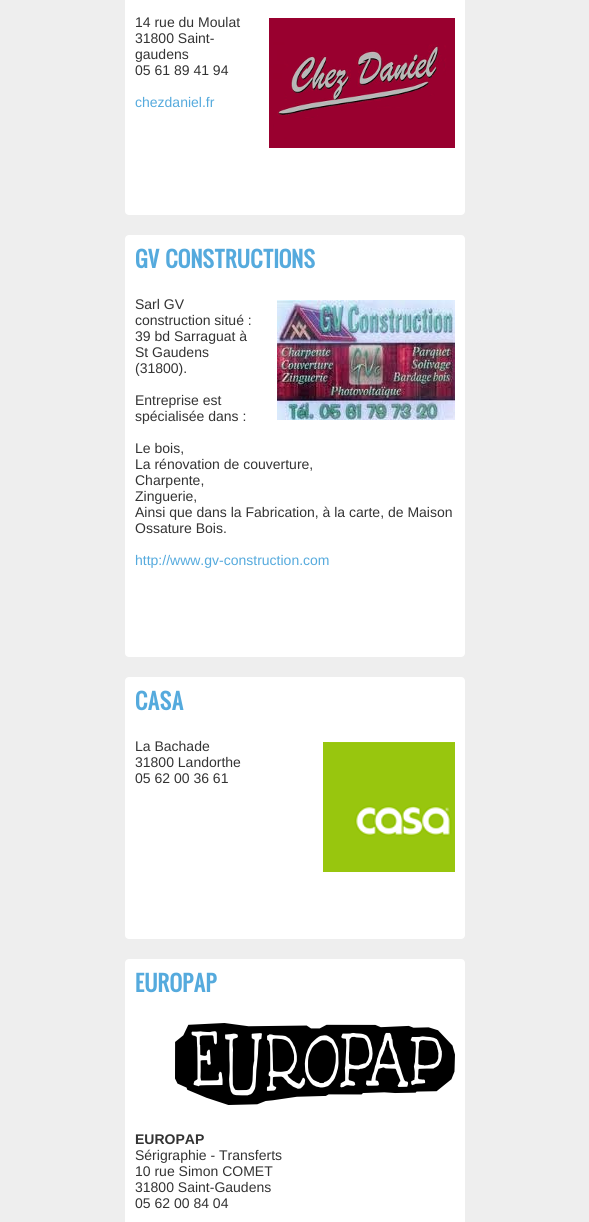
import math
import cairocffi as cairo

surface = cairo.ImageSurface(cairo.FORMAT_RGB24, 589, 1222)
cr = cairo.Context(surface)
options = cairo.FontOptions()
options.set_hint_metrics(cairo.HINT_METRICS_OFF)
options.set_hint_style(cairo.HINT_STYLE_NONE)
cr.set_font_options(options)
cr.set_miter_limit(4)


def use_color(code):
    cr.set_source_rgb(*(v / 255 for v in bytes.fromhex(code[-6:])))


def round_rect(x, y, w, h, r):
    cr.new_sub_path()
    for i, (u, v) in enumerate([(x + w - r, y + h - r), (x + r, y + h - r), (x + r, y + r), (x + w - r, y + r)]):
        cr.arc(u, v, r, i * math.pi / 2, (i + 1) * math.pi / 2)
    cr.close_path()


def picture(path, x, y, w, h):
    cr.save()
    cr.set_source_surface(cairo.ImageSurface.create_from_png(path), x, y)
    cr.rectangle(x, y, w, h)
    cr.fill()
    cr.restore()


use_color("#eeeeee")
cr.paint()
use_color("#ffffff")
round_rect(125, -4, 340, 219, 4)
cr.fill()
cr.select_font_face("Liberation Sans")
cr.set_font_size(14)
use_color("#333333")
cr.move_to(135, 27)
cr.show_text("14 rue du Moulat")
picture("img1.png", 269, 18, 186, 130)
cr.move_to(135, 43)
cr.show_text("31800 Saint-")
cr.move_to(135, 59)
cr.show_text("gaudens")
cr.move_to(135, 75)
cr.show_text("05 61 89 41 94")
use_color("#55aadd")
cr.move_to(135, 107)
cr.show_text("chezdaniel.fr")
use_color("#ffffff")
round_rect(125, 235, 340, 422, 4)
cr.fill()
cr.select_font_face("Oswald", cairo.FONT_SLANT_NORMAL, cairo.FONT_WEIGHT_BOLD)
cr.set_font_size(21.25)
use_color("#55aadd")
cr.move_to(135, 268)
cr.show_text("GV CONSTRUCTIONS")
cr.select_font_face("Liberation Sans")
cr.set_font_size(14)
use_color("#333333")
cr.move_to(135, 309)
cr.show_text("Sarl GV")
cr.move_to(135, 325)
cr.show_text("construction situé :")
cr.move_to(135, 341)
cr.show_text("39 bd Sarraguat à")
cr.move_to(135, 357)
cr.show_text("St Gaudens")
cr.move_to(135, 373)
cr.show_text("(31800).")
cr.move_to(135, 405)
cr.show_text("Entreprise est")
cr.move_to(135, 421)
cr.show_text("spécialisée dans :")
cr.move_to(135, 453)
cr.show_text("Le bois,")
cr.move_to(135, 469)
cr.show_text("La rénovation de couverture,")
cr.move_to(135, 485)
cr.show_text("Charpente,")
cr.move_to(135, 501)
cr.show_text("Zinguerie,")
cr.move_to(135, 517)
cr.show_text("Ainsi que dans la Fabrication, à la carte, de Maison")
cr.move_to(135, 533)
cr.show_text("Ossature Bois.")
use_color("#55aadd")
cr.move_to(135, 565)
cr.show_text("http://www.gv-construction.com")
picture("img2.png", 277, 300, 178, 120)
use_color("#ffffff")
round_rect(125, 677, 340, 262, 4)
cr.fill()
cr.select_font_face("Oswald", cairo.FONT_SLANT_NORMAL, cairo.FONT_WEIGHT_BOLD)
cr.set_font_size(21.25)
use_color("#55aadd")
cr.move_to(135, 710)
cr.show_text("CASA")
cr.select_font_face("Liberation Sans")
cr.set_font_size(14)
use_color("#333333")
cr.move_to(135, 751)
cr.show_text("La Bachade")
picture("img3.png", 323, 742, 132, 130)
cr.move_to(135, 767)
cr.show_text("31800 Landorthe")
cr.move_to(135, 783)
cr.show_text("05 62 00 36 61")
use_color("#ffffff")
round_rect(125, 959, 340, 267, 4)
cr.fill()
cr.select_font_face("Oswald", cairo.FONT_SLANT_NORMAL, cairo.FONT_WEIGHT_BOLD)
cr.set_font_size(21.25)
use_color("#55aadd")
cr.move_to(135, 992)
cr.show_text("EUROPAP")
picture("img4.png", 175, 1023, 280, 82)
cr.select_font_face("Liberation Sans", cairo.FONT_SLANT_NORMAL, cairo.FONT_WEIGHT_BOLD)
cr.set_font_size(14)
use_color("#333333")
cr.move_to(135, 1144)
cr.show_text("EUROPAP")
cr.select_font_face("Liberation Sans")
cr.move_to(135, 1160)
cr.show_text("Sérigraphie - Transferts")
cr.move_to(135, 1176)
cr.show_text("10 rue Simon COMET")
cr.move_to(135, 1192)
cr.show_text("31800 Saint-Gaudens")
cr.move_to(135, 1208)
cr.show_text("05 62 00 84 04")
surface.write_to_png("result.png")
